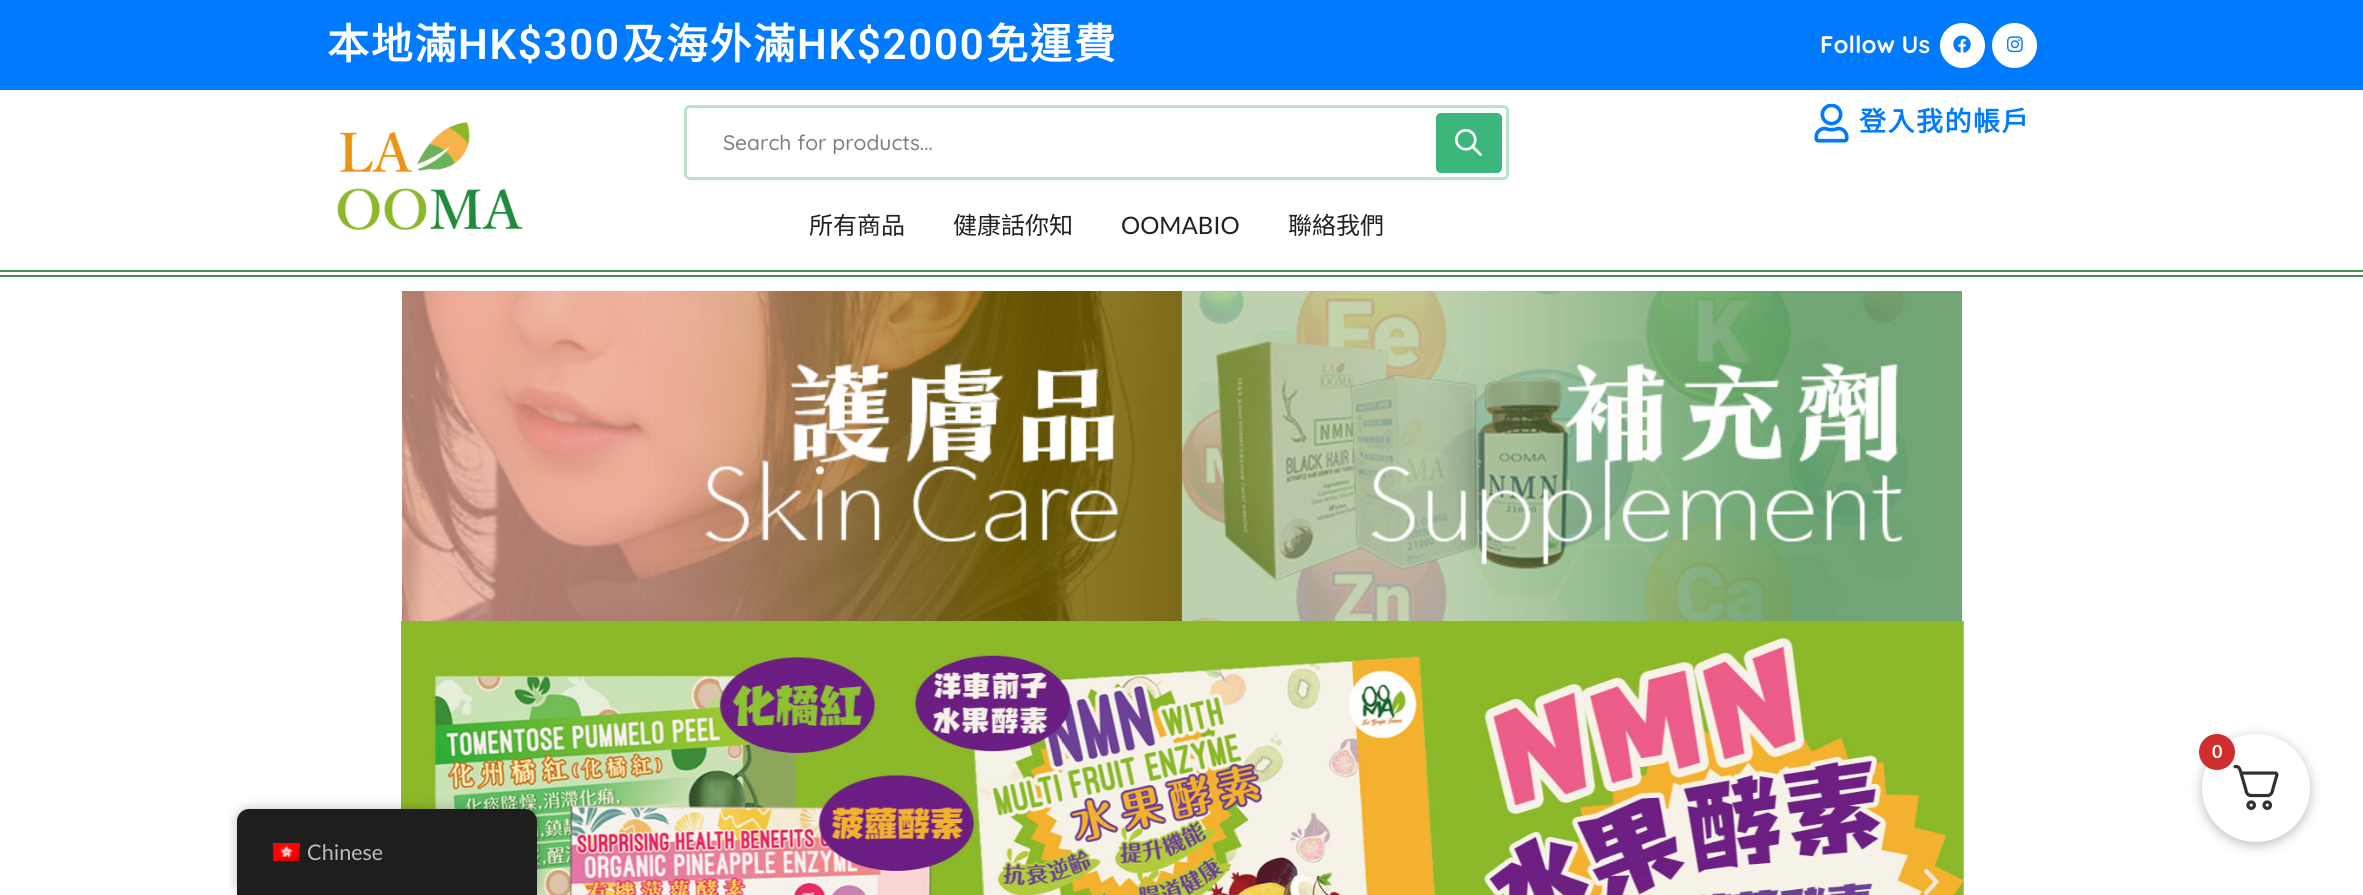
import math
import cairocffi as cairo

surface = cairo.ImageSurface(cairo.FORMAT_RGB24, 2363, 895)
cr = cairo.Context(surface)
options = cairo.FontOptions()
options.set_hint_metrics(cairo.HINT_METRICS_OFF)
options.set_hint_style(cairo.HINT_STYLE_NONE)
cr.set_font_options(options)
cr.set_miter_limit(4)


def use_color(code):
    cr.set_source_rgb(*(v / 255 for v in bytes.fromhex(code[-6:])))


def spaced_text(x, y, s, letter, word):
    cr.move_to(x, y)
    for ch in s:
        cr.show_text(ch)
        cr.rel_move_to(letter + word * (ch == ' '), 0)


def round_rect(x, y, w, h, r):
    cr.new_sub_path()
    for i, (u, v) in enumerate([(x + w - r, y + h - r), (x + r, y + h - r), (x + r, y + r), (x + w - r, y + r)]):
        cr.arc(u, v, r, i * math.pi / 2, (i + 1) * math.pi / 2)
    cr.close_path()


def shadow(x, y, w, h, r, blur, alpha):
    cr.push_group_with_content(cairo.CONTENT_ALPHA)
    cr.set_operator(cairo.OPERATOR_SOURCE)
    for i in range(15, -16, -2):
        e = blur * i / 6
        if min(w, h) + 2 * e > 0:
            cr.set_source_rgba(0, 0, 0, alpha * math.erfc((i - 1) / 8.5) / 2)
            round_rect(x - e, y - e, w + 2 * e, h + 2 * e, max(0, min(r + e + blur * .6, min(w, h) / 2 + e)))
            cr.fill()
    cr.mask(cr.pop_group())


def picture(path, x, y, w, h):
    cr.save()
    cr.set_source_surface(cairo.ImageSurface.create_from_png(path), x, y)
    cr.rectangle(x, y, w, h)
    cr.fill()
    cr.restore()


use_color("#ffffff")
cr.paint()
use_color("#007aff")
cr.rectangle(0, 0, 2363, 90)
cr.fill()
cr.select_font_face("Noto Sans CJK HK", cairo.FONT_SLANT_NORMAL, cairo.FONT_WEIGHT_BOLD)
cr.set_font_size(42)
use_color("#ffffff")
spaced_text(327, 59, "本地滿", 1.75, 0)
cr.select_font_face("Roboto SemiBold")
spaced_text(458, 59, "HK$300", 1.75, 0)
cr.select_font_face("Noto Sans CJK HK", cairo.FONT_SLANT_NORMAL, cairo.FONT_WEIGHT_BOLD)
spaced_text(622, 59, "及海外滿", 1.75, 0)
cr.select_font_face("Roboto SemiBold")
spaced_text(797, 59, "HK$2000", 1.75, 0)
cr.select_font_face("Noto Sans CJK HK", cairo.FONT_SLANT_NORMAL, cairo.FONT_WEIGHT_BOLD)
spaced_text(986, 59, "免運費", 1.75, 0)
cr.select_font_face("Quicksand", cairo.FONT_SLANT_NORMAL, cairo.FONT_WEIGHT_BOLD)
cr.set_font_size(24)
cr.move_to(1820, 53)
cr.show_text("Follow Us")
cr.new_path()
cr.arc(1962.5, 45.5, 22.5, 0, 2 * math.pi)
cr.fill()
picture("img1.png", 1953, 35, 18, 18)
cr.arc(2014.5, 45.5, 22.5, 0, 2 * math.pi)
cr.fill()
picture("img2.png", 2007, 36, 16, 17)
use_color("#409155")
cr.rectangle(0, 270, 2363, 2)
cr.fill()
cr.rectangle(0, 275, 2363, 2)
cr.fill()
picture("img3.png", 337, 122, 186, 109)
round_rect(685.5, 106.5, 822, 72, 4.5)
use_color("#bce3c9")
cr.set_line_width(3)
cr.stroke()
cr.select_font_face("Quicksand Medium")
cr.set_font_size(21)
use_color("#7e7e7e")
cr.move_to(723, 150)
cr.show_text("Search for products...")
use_color("#3bb77e")
round_rect(1436, 113, 66, 60, 5)
cr.fill()
picture("img4.png", 1455, 129, 27, 27)
cr.select_font_face("Noto Sans CJK HK")
cr.set_font_size(24)
use_color("#1f2124")
cr.move_to(809, 234)
cr.show_text("所有商品")
cr.move_to(953, 234)
cr.show_text("健康話你知")
cr.select_font_face("Lato")
cr.move_to(1121, 234)
cr.show_text("OOMABIO")
cr.select_font_face("Noto Sans CJK HK")
cr.move_to(1288, 234)
cr.show_text("聯絡我們")
picture("img5.png", 1814, 104, 35, 39)
cr.select_font_face("Noto Sans CJK HK", cairo.FONT_SLANT_NORMAL, cairo.FONT_WEIGHT_BOLD)
cr.set_font_size(27)
use_color("#007aff")
spaced_text(1859, 131, "登入我的帳戶", 1.5, 0)
picture("img6.png", 402, 291, 780, 330)
picture("img7.png", 1182, 291, 780, 330)
picture("img8.png", 401, 621, 1563, 274)
picture("img9.png", 1924, 869, 15, 26)
use_color("#000000")
shadow(2202, 737, 108, 108, 54, 6, 0.25)
use_color("#ffffff")
cr.arc(2256, 788, 54, 0, 2 * math.pi)
cr.fill()
picture("img10.png", 2233, 765, 46, 45)
use_color("#cf2e2e")
cr.arc(2217, 752, 18, 0, 2 * math.pi)
cr.fill()
cr.select_font_face("Lato", cairo.FONT_SLANT_NORMAL, cairo.FONT_WEIGHT_BOLD)
cr.set_font_size(18)
use_color("#ffffff")
cr.move_to(2212, 758)
cr.show_text("0")
use_color("#000000")
shadow(237, 809, 300, 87, 12, 6, 0.25)
use_color("#1e1e1e")
cr.new_path()
cr.move_to(249, 809)
cr.line_to(525, 809)
cr.curve_to(531.5, 809, 537, 814.5, 537, 821)
cr.line_to(537, 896)
cr.line_to(237, 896)
cr.line_to(237, 821)
cr.curve_to(237, 814.5, 242.5, 809, 249, 809)
cr.close_path()
cr.fill()
picture("img11.png", 272, 843, 28, 18)
cr.select_font_face("Lato")
cr.set_font_size(21.5)
use_color("#bdbdbd")
cr.move_to(307, 860)
cr.show_text("Chinese")
surface.write_to_png("result.png")
